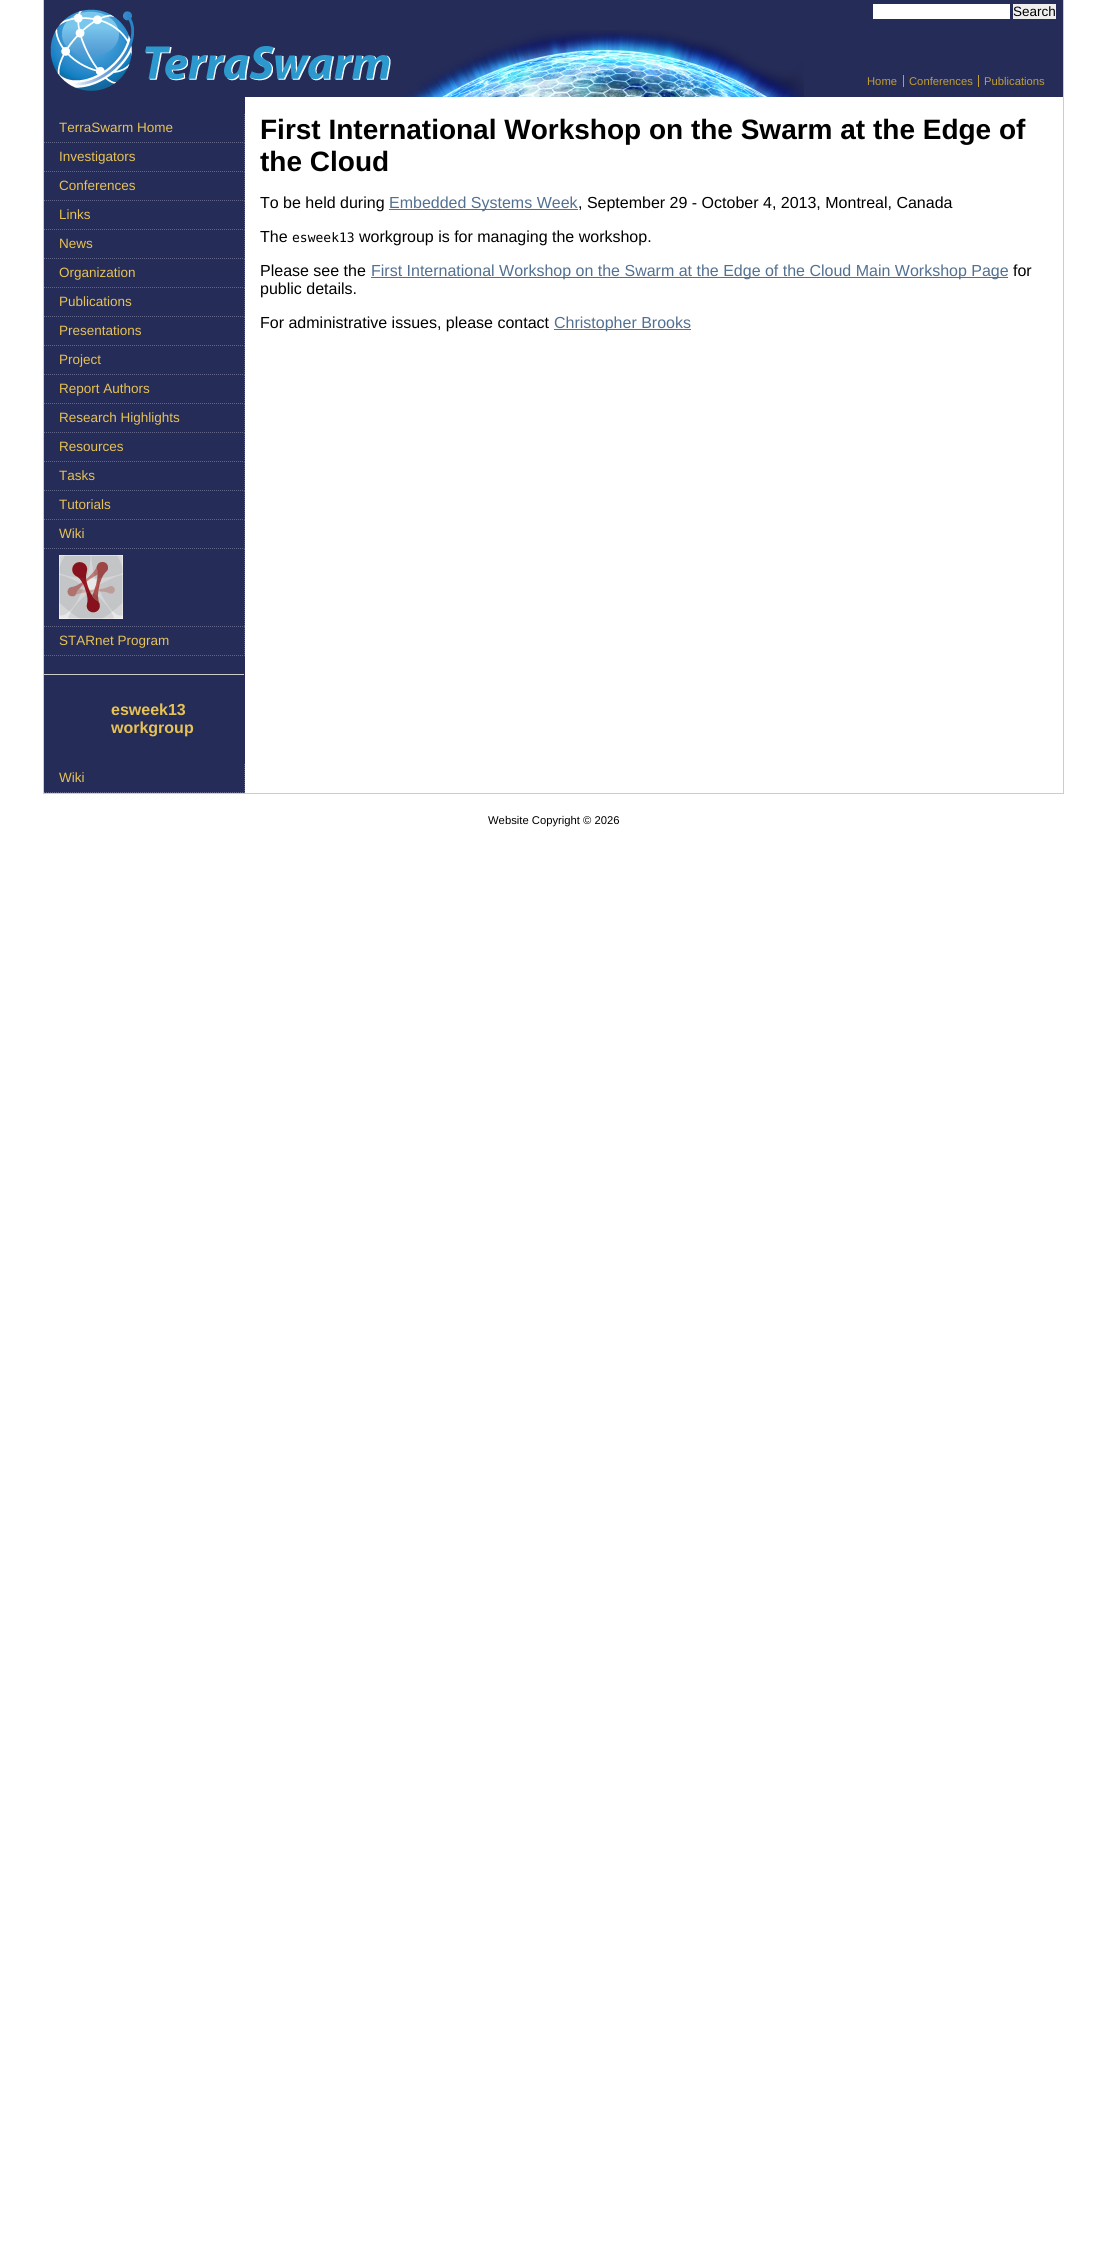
import math
import cairocffi as cairo

surface = cairo.ImageSurface(cairo.FORMAT_RGB24, 1107, 2250)
cr = cairo.Context(surface)
options = cairo.FontOptions()
options.set_hint_metrics(cairo.HINT_METRICS_OFF)
options.set_hint_style(cairo.HINT_STYLE_NONE)
cr.set_font_options(options)
cr.set_miter_limit(4)


def use_color(code):
    cr.set_source_rgb(*(v / 255 for v in bytes.fromhex(code[-6:])))


def picture(path, x, y, w, h):
    cr.save()
    cr.set_source_surface(cairo.ImageSurface.create_from_png(path), x, y)
    cr.rectangle(x, y, w, h)
    cr.fill()
    cr.restore()


use_color("#ffffff")
cr.paint()
use_color("#252c58")
cr.rectangle(44, 97, 201, 696)
cr.fill()
use_color("#cccccc")
cr.rectangle(1063, 0, 1, 794)
cr.fill()
cr.rectangle(43, 793, 1021, 1)
cr.fill()
cr.rectangle(43, 0, 1, 794)
cr.fill()
use_color("#252c58")
cr.rectangle(44, 0, 1019, 97)
cr.fill()
picture("img1.png", 50, 9, 341, 82)
picture("img2.png", 404, 30, 400, 67)
use_color("#ffffff")
cr.rectangle(873, 4, 137, 15)
cr.fill()
use_color("#efefef")
cr.rectangle(1013, 4, 43, 15)
cr.fill()
cr.select_font_face("Liberation Sans")
cr.set_font_size(13.5)
use_color("#000000")
cr.move_to(1013, 16)
cr.show_text("Search")
cr.set_font_size(11.25)
use_color("#c19e36")
cr.move_to(867, 85)
cr.show_text("Home")
cr.move_to(909, 85)
cr.show_text("Conferences")
cr.rectangle(903, 75, 1, 12)
cr.fill()
cr.move_to(984, 85)
cr.show_text("Publications")
cr.rectangle(978, 75, 1, 12)
cr.fill()
cr.new_path()
cr.move_to(244.5, 114)
cr.line_to(244.5, 143)
use_color("#616688")
cr.set_line_width(1)
cr.set_dash([1, 1])
cr.stroke()
cr.new_path()
cr.move_to(44, 142.5)
cr.line_to(245, 142.5)
cr.stroke()
cr.set_font_size(13.5)
use_color("#e7c254")
cr.move_to(59, 132)
cr.show_text("TerraSwarm Home")
cr.new_path()
cr.move_to(244.5, 143)
cr.line_to(244.5, 172)
use_color("#616688")
cr.stroke()
cr.new_path()
cr.move_to(44, 171.5)
cr.line_to(245, 171.5)
cr.stroke()
use_color("#e7c254")
cr.move_to(59, 161)
cr.show_text("Investigators")
cr.new_path()
cr.move_to(244.5, 172)
cr.line_to(244.5, 201)
use_color("#616688")
cr.stroke()
cr.new_path()
cr.move_to(44, 200.5)
cr.line_to(245, 200.5)
cr.stroke()
use_color("#e7c254")
cr.move_to(59, 190)
cr.show_text("Conferences")
cr.new_path()
cr.move_to(244.5, 201)
cr.line_to(244.5, 230)
use_color("#616688")
cr.stroke()
cr.new_path()
cr.move_to(44, 229.5)
cr.line_to(245, 229.5)
cr.stroke()
use_color("#e7c254")
cr.move_to(59, 219)
cr.show_text("Links")
cr.new_path()
cr.move_to(244.5, 230)
cr.line_to(244.5, 259)
use_color("#616688")
cr.stroke()
cr.new_path()
cr.move_to(44, 258.5)
cr.line_to(245, 258.5)
cr.stroke()
use_color("#e7c254")
cr.move_to(59, 248)
cr.show_text("News")
cr.new_path()
cr.move_to(244.5, 259)
cr.line_to(244.5, 288)
use_color("#616688")
cr.stroke()
cr.new_path()
cr.move_to(44, 287.5)
cr.line_to(245, 287.5)
cr.stroke()
use_color("#e7c254")
cr.move_to(59, 277)
cr.show_text("Organization")
cr.new_path()
cr.move_to(244.5, 288)
cr.line_to(244.5, 317)
use_color("#616688")
cr.stroke()
cr.new_path()
cr.move_to(44, 316.5)
cr.line_to(245, 316.5)
cr.stroke()
use_color("#e7c254")
cr.move_to(59, 306)
cr.show_text("Publications")
cr.new_path()
cr.move_to(244.5, 317)
cr.line_to(244.5, 346)
use_color("#616688")
cr.stroke()
cr.new_path()
cr.move_to(44, 345.5)
cr.line_to(245, 345.5)
cr.stroke()
use_color("#e7c254")
cr.move_to(59, 335)
cr.show_text("Presentations")
cr.new_path()
cr.move_to(244.5, 346)
cr.line_to(244.5, 375)
use_color("#616688")
cr.stroke()
cr.new_path()
cr.move_to(44, 374.5)
cr.line_to(245, 374.5)
cr.stroke()
use_color("#e7c254")
cr.move_to(59, 364)
cr.show_text("Project")
cr.new_path()
cr.move_to(244.5, 375)
cr.line_to(244.5, 404)
use_color("#616688")
cr.stroke()
cr.new_path()
cr.move_to(44, 403.5)
cr.line_to(245, 403.5)
cr.stroke()
use_color("#e7c254")
cr.move_to(59, 393)
cr.show_text("Report Authors")
cr.new_path()
cr.move_to(244.5, 404)
cr.line_to(244.5, 433)
use_color("#616688")
cr.stroke()
cr.new_path()
cr.move_to(44, 432.5)
cr.line_to(245, 432.5)
cr.stroke()
use_color("#e7c254")
cr.move_to(59, 422)
cr.show_text("Research Highlights")
cr.new_path()
cr.move_to(244.5, 433)
cr.line_to(244.5, 462)
use_color("#616688")
cr.stroke()
cr.new_path()
cr.move_to(44, 461.5)
cr.line_to(245, 461.5)
cr.stroke()
use_color("#e7c254")
cr.move_to(59, 451)
cr.show_text("Resources")
cr.new_path()
cr.move_to(244.5, 462)
cr.line_to(244.5, 491)
use_color("#616688")
cr.stroke()
cr.new_path()
cr.move_to(44, 490.5)
cr.line_to(245, 490.5)
cr.stroke()
use_color("#e7c254")
cr.move_to(59, 480)
cr.show_text("Tasks")
cr.new_path()
cr.move_to(244.5, 491)
cr.line_to(244.5, 520)
use_color("#616688")
cr.stroke()
cr.new_path()
cr.move_to(44, 519.5)
cr.line_to(245, 519.5)
cr.stroke()
use_color("#e7c254")
cr.move_to(59, 509)
cr.show_text("Tutorials")
cr.new_path()
cr.move_to(244.5, 520)
cr.line_to(244.5, 549)
use_color("#616688")
cr.stroke()
cr.new_path()
cr.move_to(44, 548.5)
cr.line_to(245, 548.5)
cr.stroke()
use_color("#e7c254")
cr.move_to(59, 538)
cr.show_text("Wiki")
cr.new_path()
cr.move_to(244.5, 549)
cr.line_to(244.5, 627)
use_color("#616688")
cr.stroke()
cr.new_path()
cr.move_to(44, 626.5)
cr.line_to(245, 626.5)
cr.stroke()
picture("img3.png", 59, 555, 64, 64)
cr.new_path()
cr.move_to(244.5, 627)
cr.line_to(244.5, 656)
cr.stroke()
cr.new_path()
cr.move_to(44, 655.5)
cr.line_to(245, 655.5)
cr.stroke()
use_color("#e7c254")
cr.move_to(59, 645)
cr.show_text("STARnet Program")
use_color("#cccccc")
cr.rectangle(44, 674, 200, 1)
cr.fill()
cr.select_font_face("Liberation Sans", cairo.FONT_SLANT_NORMAL, cairo.FONT_WEIGHT_BOLD)
cr.set_font_size(16)
use_color("#e7c254")
cr.move_to(111, 715)
cr.show_text("esweek13")
cr.move_to(111, 733)
cr.show_text("workgroup")
cr.new_path()
cr.move_to(244.5, 764)
cr.line_to(244.5, 793)
use_color("#616688")
cr.stroke()
cr.new_path()
cr.move_to(44, 792.5)
cr.line_to(245, 792.5)
cr.stroke()
cr.select_font_face("Liberation Sans")
cr.set_font_size(13.5)
use_color("#e7c254")
cr.move_to(59, 782)
cr.show_text("Wiki")
cr.select_font_face("Liberation Sans", cairo.FONT_SLANT_NORMAL, cairo.FONT_WEIGHT_BOLD)
cr.set_font_size(28)
use_color("#000000")
cr.move_to(260, 139)
cr.show_text("First International Workshop on the Swarm at the Edge of")
cr.move_to(260, 171)
cr.show_text("the Cloud")
cr.select_font_face("Liberation Sans")
cr.set_font_size(16)
cr.move_to(260, 208)
cr.show_text("To be held during")
use_color("#527091")
cr.rectangle(389, 209, 189, 1)
cr.fill()
cr.move_to(389, 208)
cr.show_text("Embedded Systems Week")
use_color("#000000")
cr.move_to(578, 208)
cr.show_text(", September 29 - October 4, 2013, Montreal, Canada")
cr.move_to(260, 242)
cr.show_text("The")
cr.select_font_face("DejaVu Sans Mono")
cr.set_font_size(13)
cr.move_to(292, 242)
cr.show_text("esweek13")
cr.select_font_face("Liberation Sans")
cr.set_font_size(16)
cr.move_to(359, 242)
cr.show_text("workgroup is for managing the workshop.")
cr.move_to(260, 276)
cr.show_text("Please see the")
use_color("#527091")
cr.rectangle(371, 277, 637, 1)
cr.fill()
cr.move_to(371, 276)
cr.show_text("First International Workshop on the Swarm at the Edge of the Cloud Main Workshop Page")
use_color("#000000")
cr.move_to(1013, 276)
cr.show_text("for")
cr.move_to(260, 294)
cr.show_text("public details.")
cr.move_to(260, 328)
cr.show_text("For administrative issues, please contact")
use_color("#527091")
cr.rectangle(554, 329, 137, 1)
cr.fill()
cr.move_to(554, 328)
cr.show_text("Christopher Brooks")
cr.set_font_size(11.25)
use_color("#000000")
cr.move_to(488, 824)
cr.show_text("Website Copyright © 2026")
surface.write_to_png("result.png")
